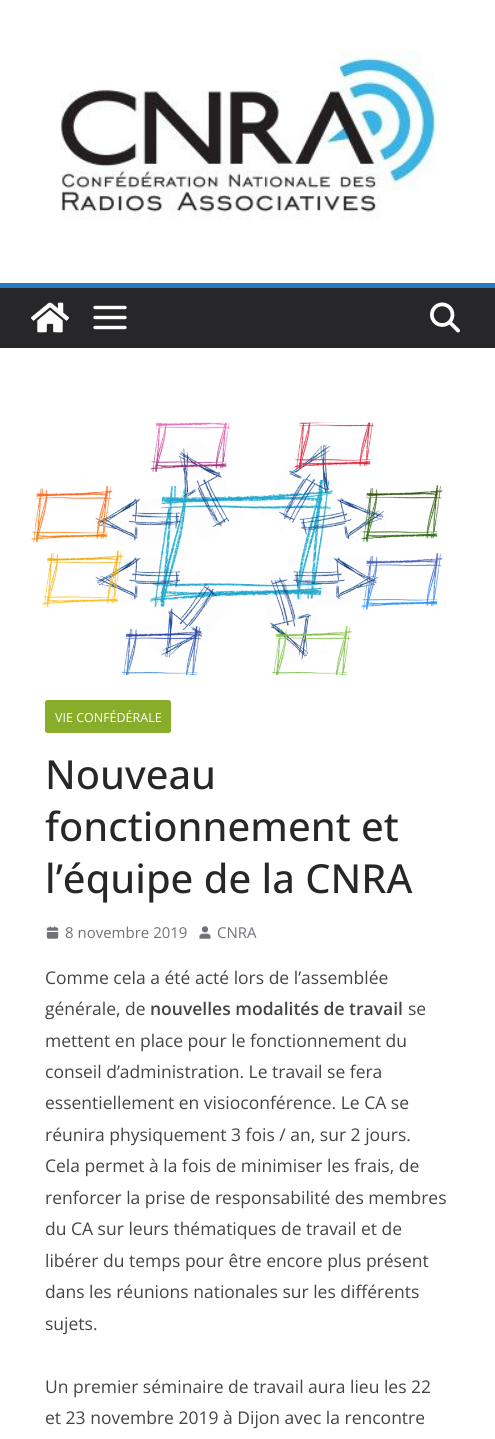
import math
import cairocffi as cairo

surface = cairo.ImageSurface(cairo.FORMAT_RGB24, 495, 1439)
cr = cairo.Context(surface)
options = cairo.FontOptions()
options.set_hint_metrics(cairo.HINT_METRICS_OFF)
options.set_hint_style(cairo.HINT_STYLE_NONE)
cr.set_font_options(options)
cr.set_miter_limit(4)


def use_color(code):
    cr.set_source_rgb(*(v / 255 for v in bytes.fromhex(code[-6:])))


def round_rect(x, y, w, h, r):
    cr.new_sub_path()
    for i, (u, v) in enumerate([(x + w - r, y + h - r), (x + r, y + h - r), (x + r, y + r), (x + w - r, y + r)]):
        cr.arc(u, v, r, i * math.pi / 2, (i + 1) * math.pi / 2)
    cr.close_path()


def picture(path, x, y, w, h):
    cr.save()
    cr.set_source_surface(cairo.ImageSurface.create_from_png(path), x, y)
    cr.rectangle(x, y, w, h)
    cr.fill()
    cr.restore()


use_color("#ffffff")
cr.paint()
picture("img1.png", 60, 49, 375, 171)
use_color("#27272a")
cr.rectangle(0, 288, 495, 60)
cr.fill()
use_color("#257bc1")
cr.rectangle(0, 283, 495, 5)
cr.fill()
picture("img2.png", 31, 302, 38, 31)
picture("img3.png", 93, 305, 34, 25)
picture("img4.png", 430, 302, 30, 31)
picture("img5.png", 31, 422, 412, 253)
use_color("#88ad2b")
round_rect(45, 700, 126, 33, 2.5)
cr.fill()
cr.select_font_face("Open Sans")
cr.set_font_size(12.5)
use_color("#ffffff")
cr.move_to(55, 722)
cr.show_text("VIE CONFÉDÉRALE")
cr.select_font_face("Open Sans Medium")
cr.set_font_size(40)
use_color("#27272a")
cr.move_to(45, 789)
cr.show_text("Nouveau")
cr.move_to(45, 841)
cr.show_text("fonctionnement et")
cr.move_to(45, 893)
cr.show_text("l’équipe de la CNRA")
picture("img6.png", 46, 926, 13, 13)
cr.select_font_face("Open Sans")
cr.set_font_size(15)
use_color("#71717a")
cr.move_to(65, 938)
cr.show_text("8 novembre 2019")
picture("img7.png", 199, 926, 12, 13)
cr.move_to(217, 938)
cr.show_text("CNRA")
cr.set_font_size(17.5)
use_color("#444444")
cr.move_to(45, 984)
cr.show_text("Comme cela a été acté lors de l’assemblée")
cr.move_to(45, 1015)
cr.show_text("générale, de")
cr.select_font_face("Open Sans SemiBold")
cr.move_to(150, 1015)
cr.show_text("nouvelles modalités de travail")
cr.select_font_face("Open Sans")
cr.move_to(408, 1015)
cr.show_text("se")
cr.move_to(45, 1047)
cr.show_text("mettent en place pour le fonctionnement du")
cr.move_to(45, 1078)
cr.show_text("conseil d’administration. Le travail se fera")
cr.move_to(45, 1109)
cr.show_text("essentiellement en visioconférence. Le CA se")
cr.move_to(45, 1141)
cr.show_text("réunira physiquement 3 fois / an, sur 2 jours.")
cr.move_to(45, 1172)
cr.show_text("Cela permet à la fois de minimiser les frais, de")
cr.move_to(45, 1204)
cr.show_text("renforcer la prise de responsabilité des membres")
cr.move_to(45, 1235)
cr.show_text("du CA sur leurs thématiques de travail et de")
cr.move_to(45, 1267)
cr.show_text("libérer du temps pour être encore plus présent")
cr.move_to(45, 1298)
cr.show_text("dans les réunions nationales sur les différents")
cr.move_to(45, 1330)
cr.show_text("sujets.")
cr.move_to(45, 1393)
cr.show_text("Un premier séminaire de travail aura lieu les 22")
cr.move_to(45, 1424)
cr.show_text("et 23 novembre 2019 à Dijon avec la rencontre")
surface.write_to_png("result.png")
